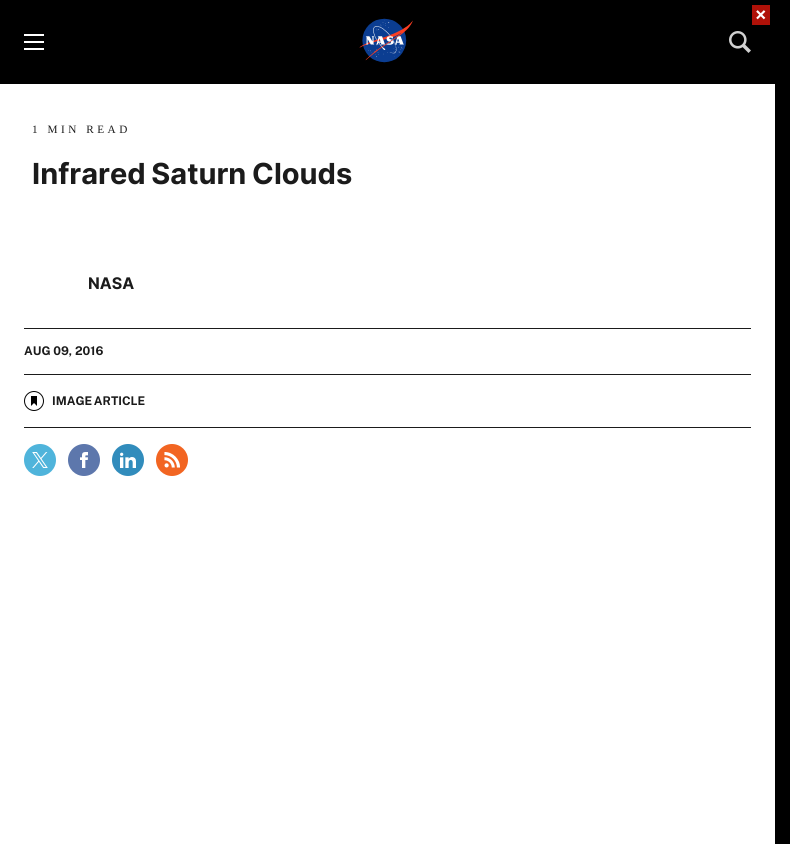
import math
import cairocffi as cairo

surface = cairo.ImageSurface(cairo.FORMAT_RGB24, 790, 844)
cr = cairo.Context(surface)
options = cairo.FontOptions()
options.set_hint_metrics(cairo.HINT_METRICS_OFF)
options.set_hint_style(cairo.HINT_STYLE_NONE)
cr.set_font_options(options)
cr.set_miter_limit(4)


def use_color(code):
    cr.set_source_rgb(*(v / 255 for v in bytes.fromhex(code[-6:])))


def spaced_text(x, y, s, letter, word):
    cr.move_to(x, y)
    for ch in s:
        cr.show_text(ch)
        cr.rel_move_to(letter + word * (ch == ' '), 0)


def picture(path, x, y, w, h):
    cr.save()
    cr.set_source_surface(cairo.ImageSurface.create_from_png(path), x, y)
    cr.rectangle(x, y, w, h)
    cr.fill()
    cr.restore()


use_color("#000000")
cr.paint()
use_color("#ffffff")
cr.rectangle(0, 84, 775, 760)
cr.fill()
use_color("#af1108")
cr.rectangle(752, 5, 18, 20)
cr.fill()
cr.select_font_face("Public Sans", cairo.FONT_SLANT_NORMAL, cairo.FONT_WEIGHT_BOLD)
cr.set_font_size(20)
use_color("#ffffff")
cr.move_to(755, 22)
cr.show_text("×")
cr.rectangle(24, 34, 20, 2)
cr.fill()
cr.rectangle(24, 41, 20, 2)
cr.fill()
cr.rectangle(24, 48, 20, 2)
cr.fill()
picture("img1.png", 359, 18, 54, 45)
picture("img2.png", 729, 31, 22, 22)
cr.select_font_face("Liberation Serif")
cr.set_font_size(11.25)
use_color("#1b1b1b")
spaced_text(32, 133, "1 MIN READ", 3.5, 0)
cr.select_font_face("Inter", cairo.FONT_SLANT_NORMAL, cairo.FONT_WEIGHT_BOLD)
cr.set_font_size(29)
spaced_text(32, 184, "Infrared Saturn Clouds", 0, -1)
cr.rectangle(24, 328, 727, 1)
cr.fill()
cr.set_font_size(16)
cr.move_to(88, 289)
cr.show_text("NASA")
cr.rectangle(24, 374, 727, 1)
cr.fill()
cr.select_font_face("Public Sans", cairo.FONT_SLANT_NORMAL, cairo.FONT_WEIGHT_BOLD)
cr.set_font_size(12)
cr.move_to(24, 355)
cr.show_text("AUG 09, 2016")
cr.rectangle(24, 427, 727, 1)
cr.fill()
picture("img3.png", 24, 391, 20, 20)
spaced_text(52, 405, "IMAGE ARTICLE", 0, -1)
use_color("#4fb4db")
cr.new_path()
cr.arc(40, 460, 16, 0, 2 * math.pi)
cr.fill()
picture("img4.png", 32, 452, 16, 16)
use_color("#5d77ac")
cr.arc(84, 460, 16, 0, 2 * math.pi)
cr.fill()
picture("img5.png", 80, 452, 8, 16)
use_color("#318cbc")
cr.arc(128, 460, 16, 0, 2 * math.pi)
cr.fill()
picture("img6.png", 120, 452, 16, 16)
use_color("#f26522")
cr.arc(172, 460, 16, 0, 2 * math.pi)
cr.fill()
picture("img7.png", 164, 452, 16, 16)
surface.write_to_png("result.png")
